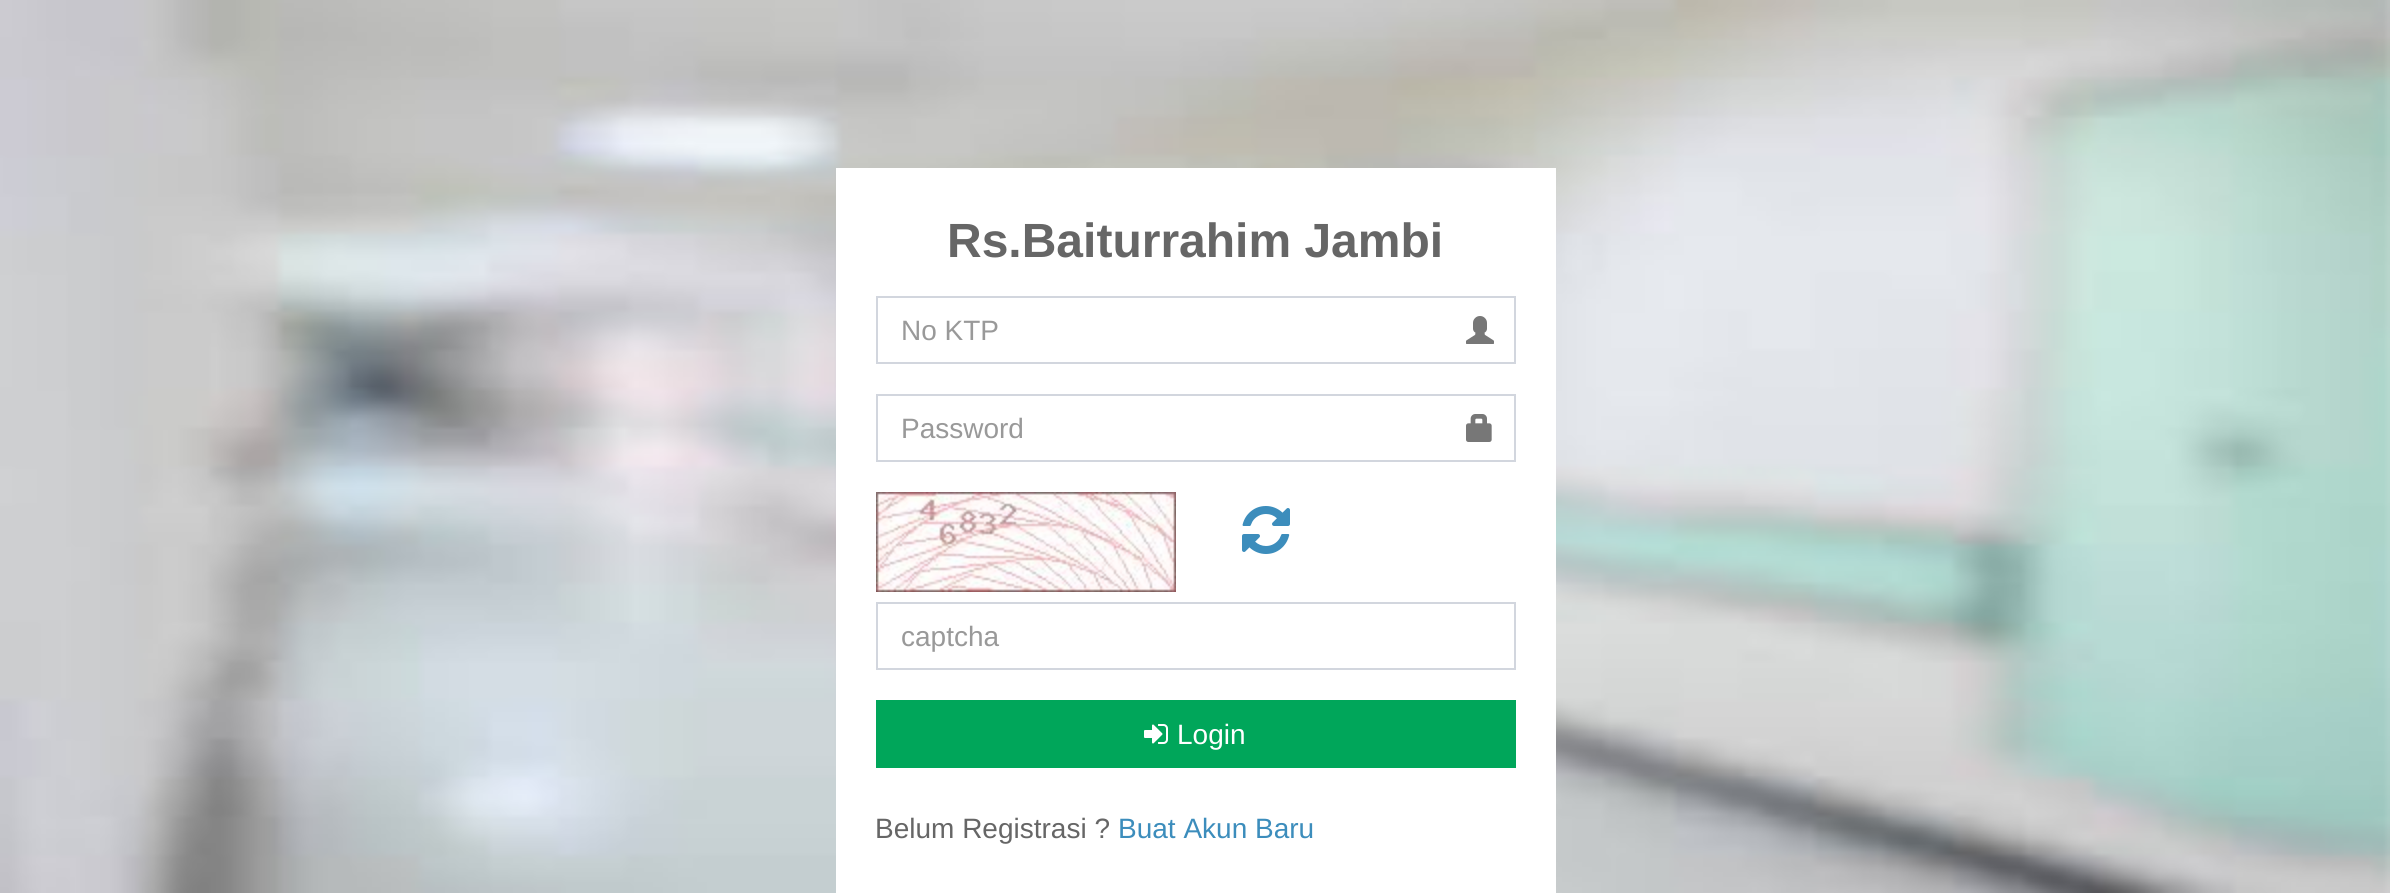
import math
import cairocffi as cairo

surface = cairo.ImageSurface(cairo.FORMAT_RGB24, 2390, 893)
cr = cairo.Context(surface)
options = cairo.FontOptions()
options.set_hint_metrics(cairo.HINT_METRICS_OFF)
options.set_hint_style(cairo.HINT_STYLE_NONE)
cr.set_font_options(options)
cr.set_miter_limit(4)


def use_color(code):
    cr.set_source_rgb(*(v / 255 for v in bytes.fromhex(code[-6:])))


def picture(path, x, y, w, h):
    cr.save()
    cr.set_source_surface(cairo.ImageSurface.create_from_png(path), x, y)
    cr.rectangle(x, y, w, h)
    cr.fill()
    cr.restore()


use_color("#ffffff")
cr.paint()
picture("img1.png", 0, 0, 2390, 893)
use_color("#ffffff")
cr.rectangle(836, 168, 720, 725)
cr.fill()
cr.select_font_face("Liberation Sans", cairo.FONT_SLANT_NORMAL, cairo.FONT_WEIGHT_BOLD)
cr.set_font_size(48)
use_color("#666666")
cr.move_to(947, 257)
cr.show_text("Rs.Baiturrahim Jambi")
cr.rectangle(877, 297, 638, 66)
use_color("#d2d6de")
cr.stroke()
cr.select_font_face("Liberation Sans")
cr.set_font_size(28)
use_color("#999999")
cr.move_to(901, 340)
cr.show_text("No KTP")
picture("img2.png", 1466, 316, 28, 28)
cr.rectangle(877, 395, 638, 66)
use_color("#d2d6de")
cr.stroke()
use_color("#999999")
cr.move_to(901, 438)
cr.show_text("Password")
picture("img3.png", 1466, 414, 26, 28)
picture("img4.png", 876, 492, 300, 100)
picture("img5.png", 1242, 506, 48, 48)
cr.rectangle(877, 603, 638, 66)
use_color("#d2d6de")
cr.stroke()
use_color("#999999")
cr.move_to(901, 646)
cr.show_text("captcha")
use_color("#00a65a")
cr.rectangle(876, 700, 640, 68)
cr.fill()
picture("img6.png", 1144, 724, 24, 20)
use_color("#ffffff")
cr.move_to(1177, 744)
cr.show_text("Login")
use_color("#666666")
cr.move_to(875, 838)
cr.show_text("Belum Registrasi ?")
use_color("#3c8dbc")
cr.move_to(1118, 838)
cr.show_text("Buat Akun Baru")
surface.write_to_png("result.png")
